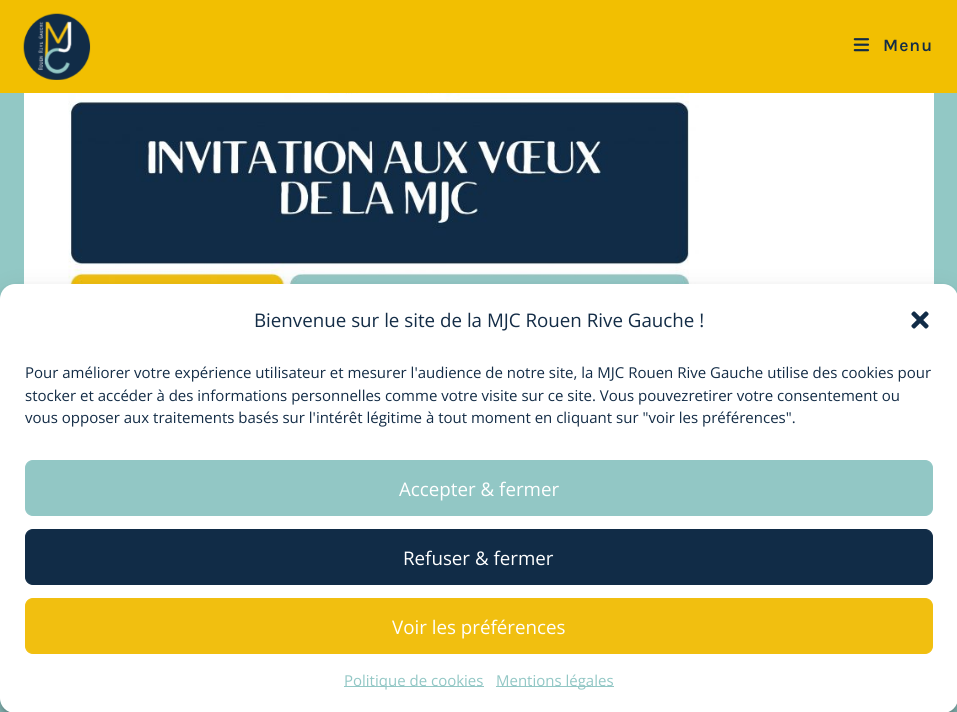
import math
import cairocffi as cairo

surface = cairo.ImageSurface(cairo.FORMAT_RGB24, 957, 712)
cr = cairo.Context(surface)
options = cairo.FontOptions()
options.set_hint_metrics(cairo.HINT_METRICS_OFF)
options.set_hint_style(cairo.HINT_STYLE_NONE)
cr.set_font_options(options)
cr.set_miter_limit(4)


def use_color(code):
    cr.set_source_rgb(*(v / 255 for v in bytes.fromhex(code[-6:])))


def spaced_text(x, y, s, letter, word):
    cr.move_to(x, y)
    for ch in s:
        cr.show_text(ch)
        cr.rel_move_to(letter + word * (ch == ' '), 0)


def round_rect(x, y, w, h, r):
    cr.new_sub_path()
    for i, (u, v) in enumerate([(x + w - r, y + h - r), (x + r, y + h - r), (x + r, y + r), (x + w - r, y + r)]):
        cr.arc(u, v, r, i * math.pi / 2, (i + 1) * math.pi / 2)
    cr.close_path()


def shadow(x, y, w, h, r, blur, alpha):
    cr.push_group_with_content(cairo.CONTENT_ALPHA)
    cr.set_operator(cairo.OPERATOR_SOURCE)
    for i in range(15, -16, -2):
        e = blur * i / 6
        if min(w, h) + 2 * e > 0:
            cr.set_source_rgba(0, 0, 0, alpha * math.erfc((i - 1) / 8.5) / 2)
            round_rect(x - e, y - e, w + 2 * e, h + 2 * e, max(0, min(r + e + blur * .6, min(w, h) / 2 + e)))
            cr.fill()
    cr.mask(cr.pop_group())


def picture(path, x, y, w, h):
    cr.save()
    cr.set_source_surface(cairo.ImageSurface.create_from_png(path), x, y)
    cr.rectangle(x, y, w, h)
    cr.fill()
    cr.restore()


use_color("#92c8c5")
cr.paint()
use_color("#f2bf01")
cr.rectangle(0, 0, 957, 93)
cr.fill()
picture("img1.png", 23, 13, 68, 67)
picture("img2.png", 853, 38, 17, 14)
cr.select_font_face("Karla SemiBold")
cr.set_font_size(17.5)
use_color("#132c46")
spaced_text(883, 51, "Menu", 1, 0)
use_color("#ffffff")
cr.rectangle(24, 93, 910, 191)
cr.fill()
picture("img3.png", 68, 93, 631, 191)
use_color("#000000")
shadow(0, 291, 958, 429, 15, 4, 0.23)
shadow(0, 296, 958, 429, 15, 12.5, 0.19)
use_color("#ffffff")
round_rect(0, 284, 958, 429, 15)
cr.fill()
cr.select_font_face("Open Sans")
cr.set_font_size(18.75)
use_color("#132c46")
cr.move_to(254, 327)
cr.show_text("Bienvenue sur le site de la MJC Rouen Rive Gauche !")
picture("img4.png", 911, 311, 18, 18)
cr.set_font_size(15)
cr.move_to(25, 378)
cr.show_text("Pour améliorer votre expérience utilisateur et mesurer l'audience de notre site, la MJC Rouen Rive Gauche utilise des cookies pour")
cr.move_to(25, 401)
cr.show_text("stocker et accéder à des informations personnelles comme votre visite sur ce site. Vous pouvezretirer votre consentement ou")
cr.move_to(25, 423)
cr.show_text("vous opposer aux traitements basés sur l'intérêt légitime à tout moment en cliquant sur \"voir les préférences\".")
use_color("#92c7c5")
round_rect(25.5, 460.5, 907, 55, 7.5)
cr.fill_preserve()
cr.set_line_width(1)
cr.stroke()
cr.set_font_size(18.75)
use_color("#ffffff")
cr.move_to(399, 496)
cr.show_text("Accepter & fermer")
use_color("#112c47")
round_rect(25.5, 529.5, 907, 55, 7.5)
cr.fill_preserve()
cr.stroke()
use_color("#ffffff")
cr.move_to(403, 565)
cr.show_text("Refuser & fermer")
use_color("#f1bf10")
round_rect(25.5, 598.5, 907, 55, 7.5)
cr.fill_preserve()
cr.stroke()
use_color("#ffffff")
cr.move_to(392, 634)
cr.show_text("Voir les préférences")
use_color("#92c7c5")
cr.rectangle(344, 686, 140, 1)
cr.fill()
cr.set_font_size(15)
cr.move_to(344, 686)
cr.show_text("Politique de cookies")
cr.rectangle(496, 686, 118, 1)
cr.fill()
cr.move_to(496, 686)
cr.show_text("Mentions légales")
surface.write_to_png("result.png")
